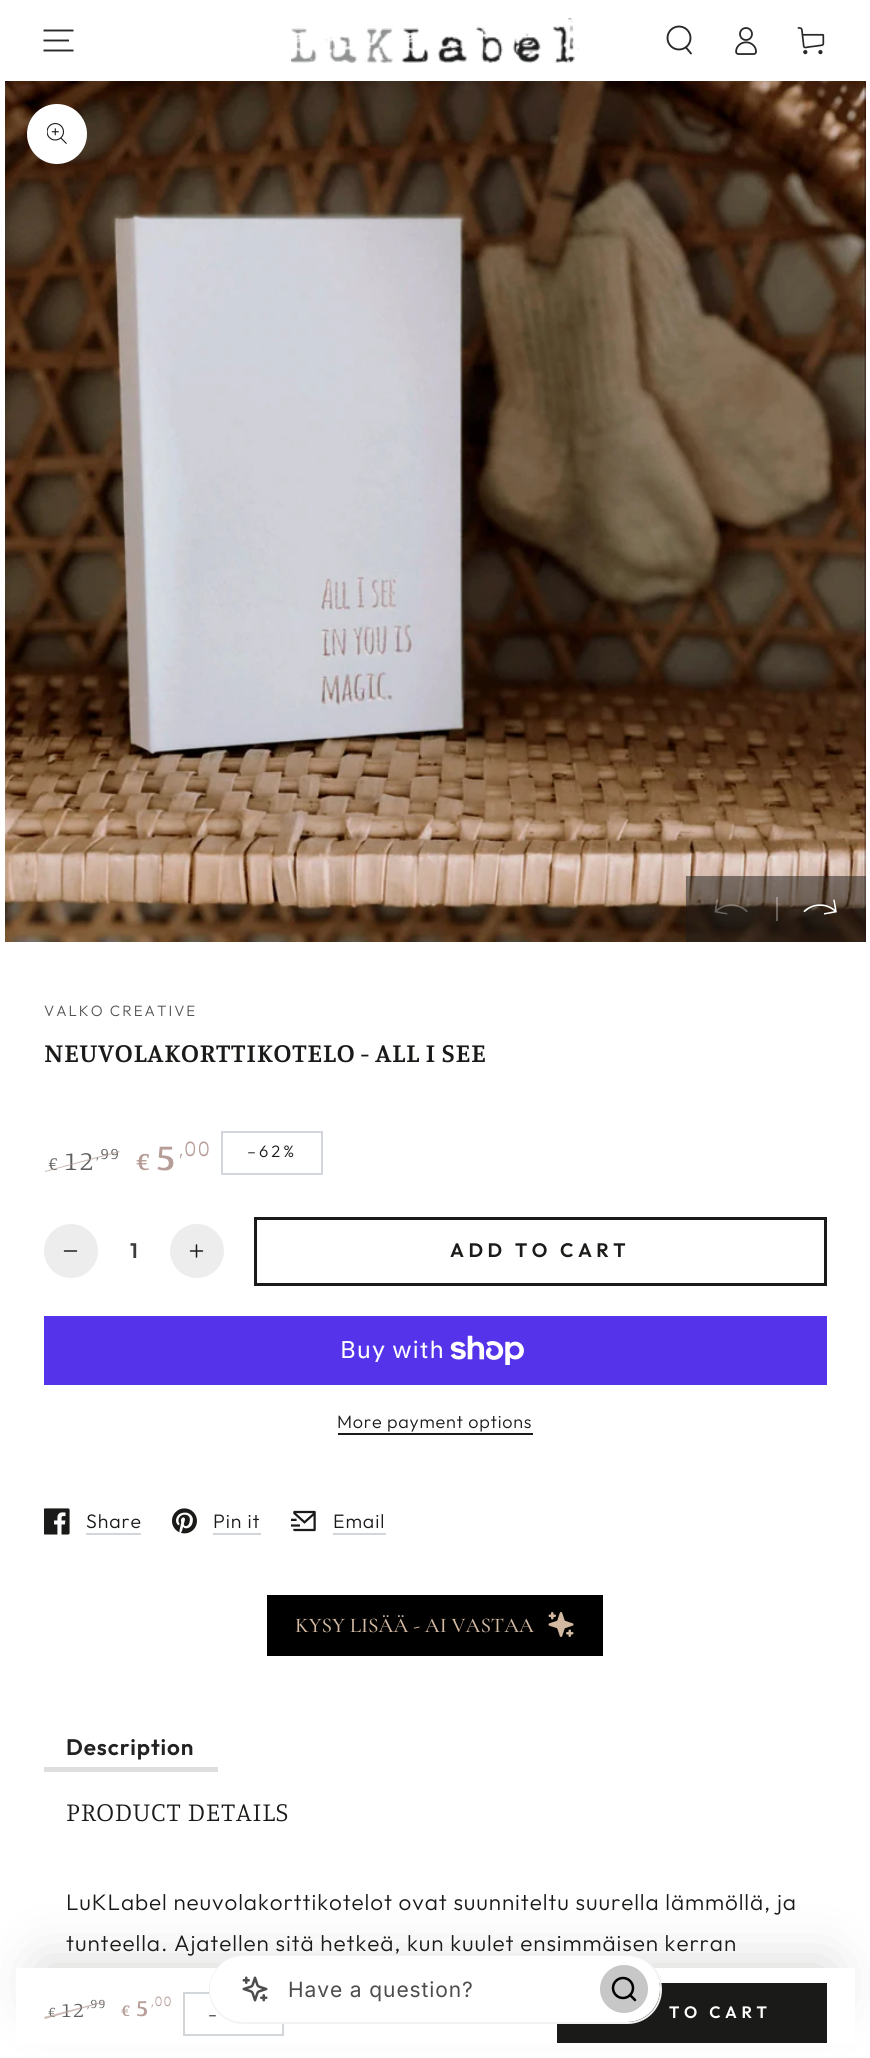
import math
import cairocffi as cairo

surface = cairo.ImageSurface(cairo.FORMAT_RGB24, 870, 2058)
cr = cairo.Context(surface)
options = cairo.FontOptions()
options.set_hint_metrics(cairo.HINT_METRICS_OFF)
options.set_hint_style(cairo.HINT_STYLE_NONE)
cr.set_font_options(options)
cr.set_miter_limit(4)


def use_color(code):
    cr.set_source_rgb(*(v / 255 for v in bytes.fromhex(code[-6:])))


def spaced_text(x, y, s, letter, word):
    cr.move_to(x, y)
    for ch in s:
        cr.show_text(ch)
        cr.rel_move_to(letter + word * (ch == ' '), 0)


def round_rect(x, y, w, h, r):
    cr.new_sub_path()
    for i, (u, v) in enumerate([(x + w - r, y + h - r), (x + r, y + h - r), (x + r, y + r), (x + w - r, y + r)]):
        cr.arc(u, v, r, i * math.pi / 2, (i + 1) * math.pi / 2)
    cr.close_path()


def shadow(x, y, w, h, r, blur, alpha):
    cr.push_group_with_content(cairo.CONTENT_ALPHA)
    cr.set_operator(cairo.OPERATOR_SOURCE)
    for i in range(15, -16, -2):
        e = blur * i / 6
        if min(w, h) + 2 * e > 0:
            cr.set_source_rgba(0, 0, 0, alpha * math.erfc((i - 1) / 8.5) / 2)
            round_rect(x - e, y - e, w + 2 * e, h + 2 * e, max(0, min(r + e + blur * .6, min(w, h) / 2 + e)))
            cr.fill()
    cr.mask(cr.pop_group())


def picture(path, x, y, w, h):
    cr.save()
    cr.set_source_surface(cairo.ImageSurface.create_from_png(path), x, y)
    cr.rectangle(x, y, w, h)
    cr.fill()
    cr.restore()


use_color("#ffffff")
cr.paint()
cr.new_path()
cr.move_to(43.5, 50.5)
cr.line_to(73.5, 50.5)
cr.move_to(43.5, 40.5)
cr.line_to(69, 40.5)
cr.move_to(43.5, 30.5)
cr.line_to(73.5, 30.5)
use_color("#282828")
cr.set_line_width(1.9)
cr.stroke()
picture("img1.png", 291, 18, 288, 45)
cr.arc(679, 38, 11.5, 0, 2 * math.pi)
cr.stroke()
cr.new_path()
cr.move_to(686, 47.5)
cr.line_to(691, 53.5)
cr.set_line_cap(cairo.LINE_CAP_ROUND)
cr.stroke()
picture("img2.png", 735, 27, 22, 28)
picture("img3.png", 797, 27, 28, 28)
picture("img4.png", 5, 81, 861, 861)
use_color("#ffffff")
cr.arc(57, 134, 30, 0, 2 * math.pi)
cr.fill()
picture("img5.png", 47, 123, 20, 21)
cr.set_source_rgba(0.102, 0.106, 0.094, 0.5)
cr.rectangle(686, 876, 90, 66)
cr.fill()
picture("img6.png", 714, 899, 34, 16)
cr.rectangle(776, 876, 90, 66)
cr.fill()
cr.set_source_rgba(1, 1, 1, 0.3)
cr.rectangle(776, 897, 2, 24)
cr.fill()
picture("img7.png", 803, 899, 34, 16)
cr.select_font_face("Outfit Light")
cr.set_font_size(15)
use_color("#535452")
spaced_text(44, 1016, "VALKO CREATIVE", 2, 0)
cr.select_font_face("Manuale SemiBold")
cr.set_font_size(27)
use_color("#1a1b18")
spaced_text(44, 1062, "NEUVOLAKORTTIKOTELO - ALL I SEE", 0.8, 0)
cr.select_font_face("Manuale Light")
cr.set_font_size(16)
use_color("#5f5f5d")
spaced_text(96, 1159, ",99", 2, 0)
cr.set_font_size(19)
spaced_text(48, 1170, "€", 2, 0)
cr.set_font_size(27)
spaced_text(64, 1170, "12", 2, 0)
cr.set_source_rgba(0.718, 0.616, 0.596, 0.7)
cr.new_path()
cr.move_to(45, 1171)
cr.line_to(119, 1151)
cr.line_to(120, 1152)
cr.line_to(45, 1172)
cr.close_path()
cr.fill()
cr.select_font_face("Manuale SemiBold")
cr.set_font_size(26)
use_color("#b79d98")
spaced_text(136, 1170, "€", 2, 0)
cr.set_font_size(38)
spaced_text(156, 1170, "5", 2, 0)
cr.select_font_face("Manuale Light")
cr.set_font_size(23)
spaced_text(179, 1156, ",00", 2, 0)
cr.rectangle(222, 1132, 100, 42)
use_color("#d2d5d9")
cr.set_line_width(2)
cr.set_line_cap(cairo.LINE_CAP_BUTT)
cr.stroke()
cr.select_font_face("Outfit Light")
cr.set_font_size(16.5)
use_color("#1a1b18")
spaced_text(247, 1157, "–62%", 3, 0)
use_color("#ededed")
cr.new_path()
cr.arc(71, 1251, 27, 0, 2 * math.pi)
cr.fill()
picture("img8.png", 63, 1250, 15, 2)
cr.select_font_face("Outfit SemiBold")
cr.set_font_size(21)
use_color("#3c3d3b")
cr.move_to(130, 1258)
cr.show_text("1")
use_color("#ededed")
cr.new_path()
cr.arc(197, 1251, 27, 0, 2 * math.pi)
cr.fill()
picture("img9.png", 189, 1244, 15, 14)
cr.rectangle(255.5, 1218.5, 570, 66)
use_color("#1a1b18")
cr.set_line_width(3)
cr.stroke()
cr.set_font_size(19.5)
spaced_text(450, 1257, "ADD TO CART", 4.5, 0)
use_color("#5433eb")
cr.rectangle(44, 1316, 783, 69)
cr.fill()
cr.select_font_face("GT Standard")
cr.set_font_size(24)
use_color("#ffffff")
spaced_text(340, 1358, "Buy with", 0.9, 0)
picture("img10.png", 450, 1335, 74, 30)
cr.select_font_face("Outfit Light")
cr.set_font_size(18)
use_color("#1a1b18")
spaced_text(337, 1428, "More payment options", 0.75, 0)
cr.rectangle(338, 1433, 195, 2)
cr.fill()
picture("img11.png", 44, 1508, 26, 27)
use_color("#d2d5d9")
cr.rectangle(86, 1533, 55, 2)
cr.fill()
cr.set_font_size(19.5)
use_color("#1a1b18")
spaced_text(86, 1528, "Share", 0.9, 0)
picture("img12.png", 172, 1508, 25, 26)
use_color("#d2d5d9")
cr.rectangle(213, 1533, 48, 2)
cr.fill()
use_color("#1a1b18")
spaced_text(213, 1528, "Pin it", 0.9, 0)
picture("img13.png", 291, 1510, 25, 22)
use_color("#d2d5d9")
cr.rectangle(333, 1533, 53, 2)
cr.fill()
use_color("#1a1b18")
spaced_text(333, 1528, "Email", 0.9, 0)
use_color("#1a1b18")
shadow(44, 1968, 783, 30, 15, 30, 0.2)
use_color("#ffffff")
cr.rectangle(16, 1968, 839, 76)
cr.fill()
cr.select_font_face("Manuale Light")
cr.set_font_size(13)
use_color("#5f5f5d")
spaced_text(87, 2008, ",99", 1.5, 0)
cr.set_font_size(15)
spaced_text(48, 2017, "€", 1.5, 0)
cr.set_font_size(21)
spaced_text(61, 2017, "12", 1.5, 0)
cr.set_source_rgba(0.718, 0.616, 0.596, 0.7)
cr.new_path()
cr.move_to(44, 2017)
cr.line_to(105, 2001)
cr.line_to(105, 2002)
cr.line_to(45, 2019)
cr.close_path()
cr.fill()
cr.select_font_face("Manuale SemiBold")
cr.set_font_size(17)
use_color("#b79d98")
spaced_text(121, 2016, "€", 1.5, 0)
cr.set_font_size(24)
spaced_text(136, 2016, "5", 1.5, 0)
cr.select_font_face("Manuale Light")
cr.set_font_size(15)
spaced_text(151, 2006, ",00", 1.5, 0)
cr.rectangle(184, 1993, 99, 42)
use_color("#d2d5d9")
cr.set_line_width(2)
cr.stroke()
cr.select_font_face("Outfit Light")
cr.set_font_size(16.5)
use_color("#1a1b18")
spaced_text(208, 2020, "–", 3, 0)
cr.rectangle(557, 1983, 270, 60)
cr.fill()
cr.select_font_face("Outfit SemiBold")
use_color("#ffffff")
spaced_text(669, 2018, "TO CART", 4.5, 0)
use_color("#000000")
cr.rectangle(267, 1595, 336, 61)
cr.fill()
cr.select_font_face("Cormorant Garamond Medium")
cr.set_font_size(21)
use_color("#d3b9a1")
cr.move_to(295, 1632)
cr.show_text("KYSY LISÄÄ - AI VASTAA")
picture("img14.png", 548, 1612, 26, 25)
use_color("#dedede")
cr.rectangle(44, 1767, 174, 5)
cr.fill()
cr.select_font_face("Outfit SemiBold")
cr.set_font_size(22.5)
use_color("#222222")
spaced_text(66, 1755, "Description", 0.9, 0)
cr.select_font_face("Manuale Light")
cr.set_font_size(27)
use_color("#1a1b18")
spaced_text(66, 1821, "PRODUCT DETAILS", 0.8, 0)
cr.select_font_face("Outfit Light")
cr.set_font_size(22.5)
spaced_text(66, 1910, "LuKLabel neuvolakorttikotelot ovat suunniteltu suurella lämmöllä, ja", 0.9, 0)
spaced_text(66, 1951, "tunteella. Ajatellen sitä hetkeä, kun kuulet ensimmäisen kerran", 0.9, 0)
round_rect(210, 1956, 451, 67, 33.5)
use_color("#f2f2f2")
cr.stroke()
use_color("#ffffff")
round_rect(210, 1956, 450, 66, 33)
cr.fill()
picture("img15.png", 242, 1976, 26, 26)
cr.select_font_face("Inter")
cr.set_font_size(21)
use_color("#4d4d4d")
spaced_text(288, 1997, "Have a question?", 0.9, 0)
use_color("#c7c7c7")
cr.new_path()
cr.arc(624, 1989, 24, 0, 2 * math.pi)
cr.fill()
cr.arc(623, 1988, 10, 0, 2 * math.pi)
use_color("#000000")
cr.set_line_width(2.5)
cr.stroke()
cr.new_path()
cr.move_to(635, 2000)
cr.line_to(630, 1995)
cr.set_line_cap(cairo.LINE_CAP_ROUND)
cr.set_line_join(cairo.LINE_JOIN_ROUND)
cr.stroke()
surface.write_to_png("result.png")
